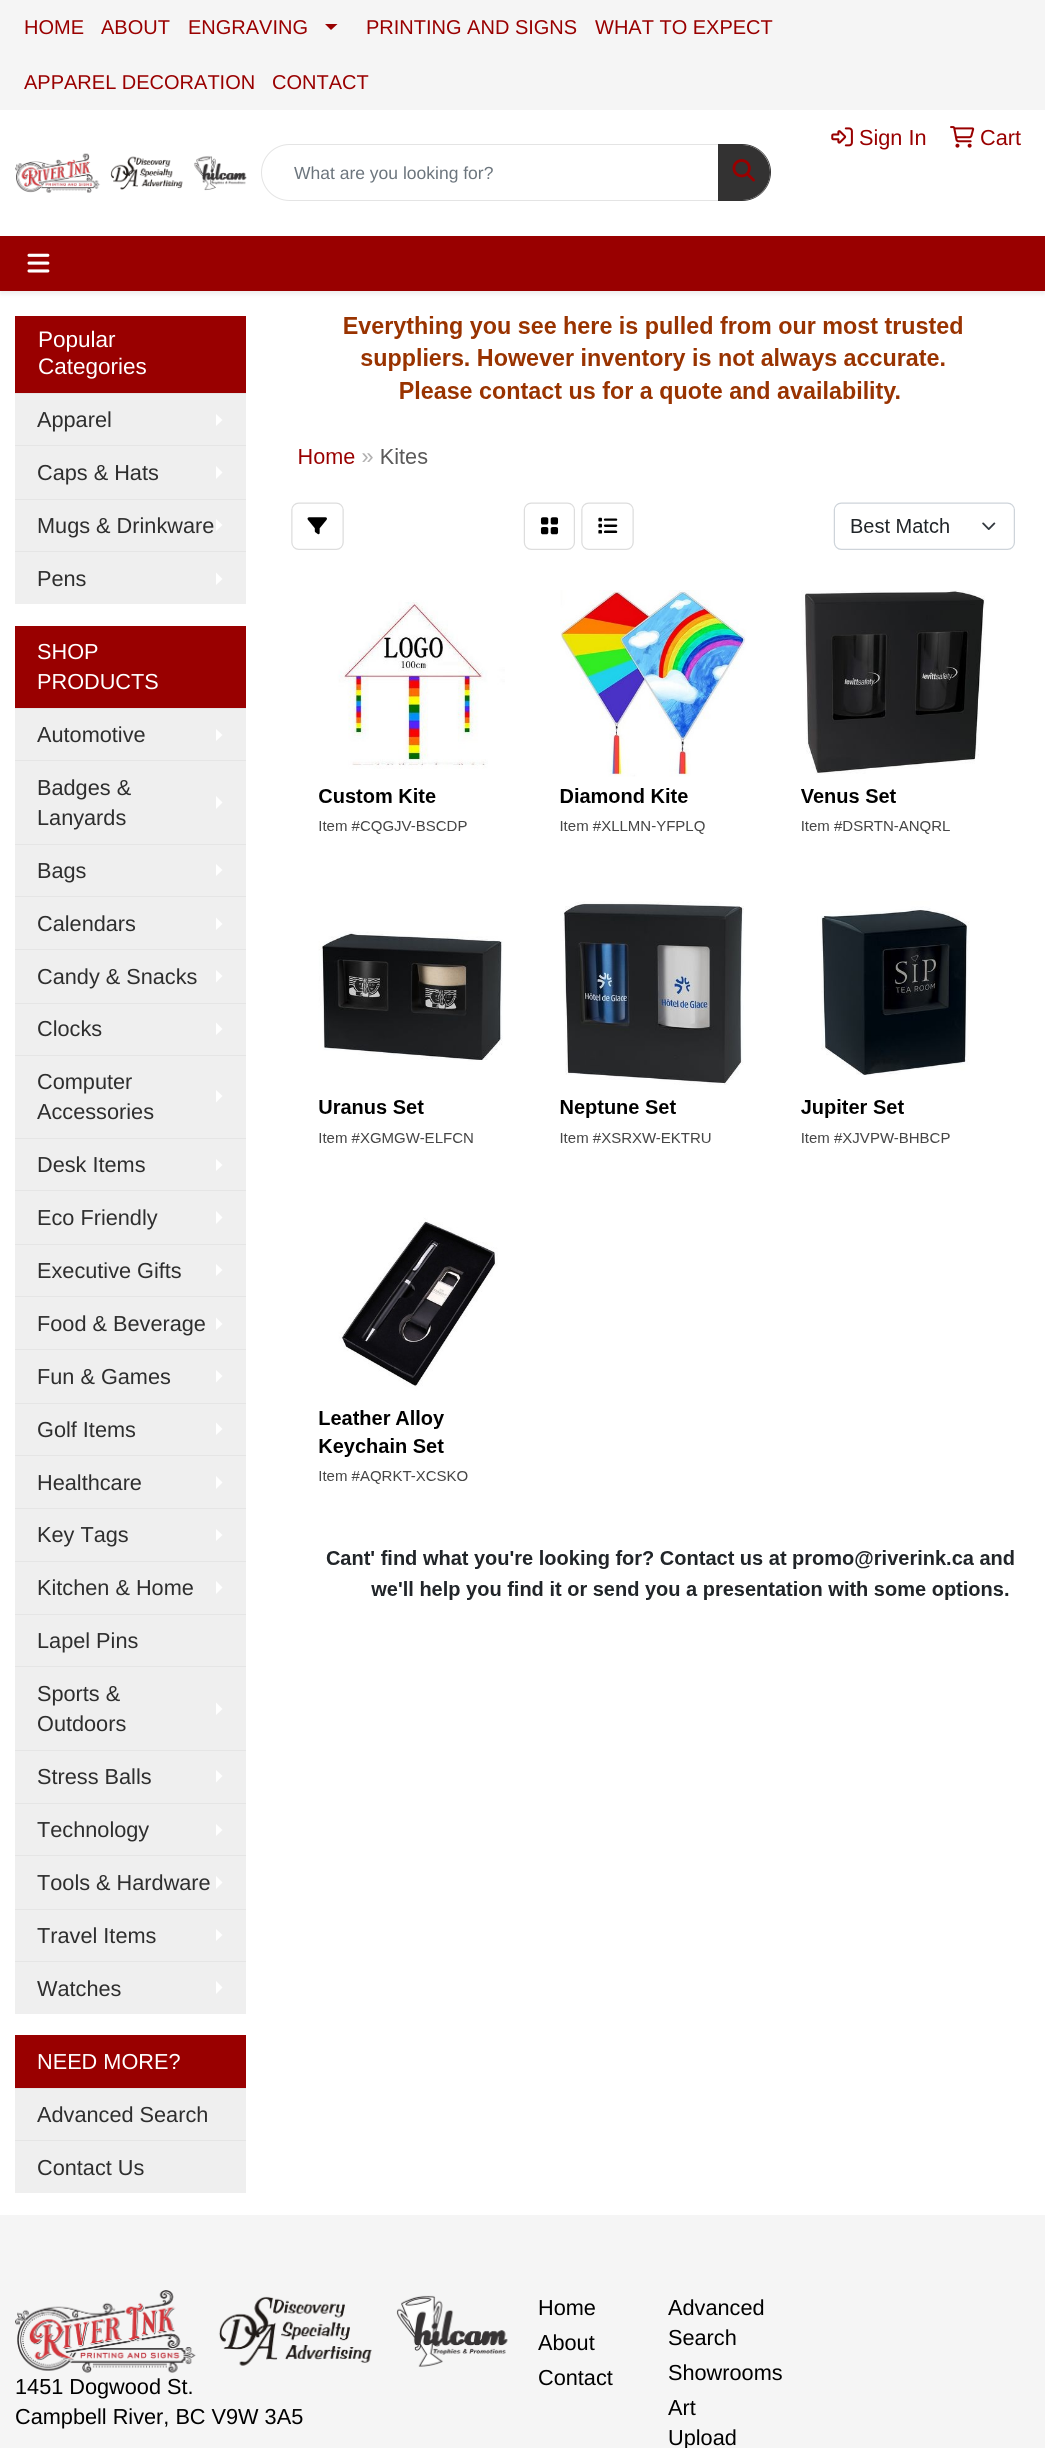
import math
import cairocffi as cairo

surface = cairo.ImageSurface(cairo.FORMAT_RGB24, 1045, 2448)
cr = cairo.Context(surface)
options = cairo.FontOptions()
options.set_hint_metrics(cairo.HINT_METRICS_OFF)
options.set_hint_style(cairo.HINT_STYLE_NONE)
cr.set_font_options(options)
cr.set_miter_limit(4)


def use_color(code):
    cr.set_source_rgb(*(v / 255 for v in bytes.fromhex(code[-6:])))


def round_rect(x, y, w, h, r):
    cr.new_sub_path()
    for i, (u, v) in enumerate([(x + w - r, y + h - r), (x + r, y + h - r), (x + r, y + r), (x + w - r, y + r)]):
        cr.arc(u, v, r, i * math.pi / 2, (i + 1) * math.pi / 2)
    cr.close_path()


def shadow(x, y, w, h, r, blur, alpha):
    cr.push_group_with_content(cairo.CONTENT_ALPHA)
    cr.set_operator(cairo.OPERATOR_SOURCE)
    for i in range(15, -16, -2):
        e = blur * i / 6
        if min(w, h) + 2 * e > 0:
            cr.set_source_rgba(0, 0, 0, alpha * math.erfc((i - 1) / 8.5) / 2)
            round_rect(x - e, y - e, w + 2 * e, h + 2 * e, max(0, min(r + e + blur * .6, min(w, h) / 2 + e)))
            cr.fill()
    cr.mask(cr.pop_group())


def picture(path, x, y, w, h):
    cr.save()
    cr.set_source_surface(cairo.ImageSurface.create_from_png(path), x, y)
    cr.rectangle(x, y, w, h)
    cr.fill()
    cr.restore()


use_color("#ffffff")
cr.paint()
use_color("#f5f5f5")
cr.rectangle(0, 0, 1045, 110)
cr.fill()
cr.select_font_face("Liberation Sans")
cr.set_font_size(20)
use_color("#990000")
cr.move_to(24, 34)
cr.show_text("HOME")
cr.move_to(101, 34)
cr.show_text("ABOUT")
cr.move_to(188, 34)
cr.show_text("ENGRAVING")
cr.new_path()
cr.move_to(325, 24)
cr.line_to(337.5, 24)
cr.line_to(331, 30)
cr.close_path()
cr.fill()
cr.move_to(366, 34)
cr.show_text("PRINTING AND SIGNS")
cr.move_to(595, 34)
cr.show_text("WHAT TO EXPECT")
cr.move_to(24, 89)
cr.show_text("APPAREL DECORATION")
cr.move_to(272, 89)
cr.show_text("CONTACT")
picture("img1.png", 831, 127, 22, 20)
cr.set_font_size(21.7)
cr.move_to(859, 145)
cr.show_text("Sign In")
picture("img2.png", 950, 126, 25, 22)
cr.move_to(980, 145)
cr.show_text("Cart")
picture("img3.png", 15, 153, 232, 40)
cr.new_path()
cr.move_to(289.5, 144.5)
cr.line_to(718.5, 144.5)
cr.line_to(718.5, 200.5)
cr.line_to(289.5, 200.5)
cr.curve_to(274, 200.5, 261.5, 188, 261.5, 172.5)
cr.curve_to(261.5, 157, 274, 144.5, 289.5, 144.5)
cr.close_path()
use_color("#e4e4e4")
cr.set_line_width(1)
cr.stroke()
cr.set_font_size(17.5)
use_color("#6c757d")
cr.move_to(294, 179)
cr.show_text("What are you looking for?")
use_color("#333232")
cr.new_path()
cr.move_to(718, 145)
cr.line_to(742.5, 145)
cr.curve_to(757.5, 145, 770, 157.5, 770, 172.5)
cr.curve_to(770, 187.5, 757.5, 200, 742.5, 200)
cr.line_to(718, 200)
cr.close_path()
cr.fill()
cr.set_fill_rule(cairo.FILL_RULE_EVEN_ODD)
cr.new_path()
cr.move_to(718, 144)
cr.line_to(742, 144)
cr.curve_to(758, 144, 771, 157, 771, 172)
cr.curve_to(771, 188, 758, 201, 742, 201)
cr.line_to(718, 201)
cr.close_path()
cr.move_to(718, 145)
cr.line_to(742, 145)
cr.curve_to(758, 145, 770, 157, 770, 172)
cr.curve_to(770, 188, 758, 200, 742, 200)
cr.line_to(718, 200)
cr.close_path()
cr.fill()
picture("img4.png", 732, 159, 23, 23)
use_color("#000000")
shadow(0, 239, 1045, 55, 0, 2.5, 0.07)
use_color("#990000")
cr.rectangle(0, 236, 1045, 55)
cr.fill()
picture("img5.png", 27, 253, 23, 20)
cr.rectangle(15, 316, 231, 77)
cr.fill()
cr.set_font_size(22.5)
use_color("#ffffff")
cr.move_to(38, 347)
cr.show_text("Popular")
cr.move_to(38, 374)
cr.show_text("Categories")
use_color("#efefef")
cr.rectangle(15, 394, 231, 51)
cr.fill()
use_color("#e5e5e5")
cr.rectangle(15, 393, 231, 1)
cr.fill()
cr.set_font_size(21.7)
use_color("#2e2e2e")
cr.move_to(37, 427)
cr.show_text("Apparel")
use_color("#ffffff")
cr.set_fill_rule(cairo.FILL_RULE_WINDING)
cr.new_path()
cr.move_to(216, 426)
cr.line_to(216, 414)
cr.line_to(222.5, 420)
cr.close_path()
cr.fill()
use_color("#efefef")
cr.rectangle(15, 446, 231, 53)
cr.fill()
use_color("#e5e5e5")
cr.rectangle(15, 445, 231, 1)
cr.fill()
use_color("#2e2e2e")
cr.move_to(37, 480)
cr.show_text("Caps & Hats")
use_color("#ffffff")
cr.new_path()
cr.move_to(216, 479)
cr.line_to(216, 466)
cr.line_to(222.5, 472.5)
cr.close_path()
cr.fill()
use_color("#efefef")
cr.rectangle(15, 500, 231, 51)
cr.fill()
use_color("#e5e5e5")
cr.rectangle(15, 499, 231, 1)
cr.fill()
use_color("#2e2e2e")
cr.move_to(37, 533)
cr.show_text("Mugs & Drinkware")
use_color("#ffffff")
cr.new_path()
cr.move_to(216, 531)
cr.line_to(216, 519)
cr.line_to(222.5, 525)
cr.close_path()
cr.fill()
use_color("#efefef")
cr.rectangle(15, 552, 231, 52)
cr.fill()
use_color("#e5e5e5")
cr.rectangle(15, 551, 231, 1)
cr.fill()
use_color("#2e2e2e")
cr.move_to(37, 586)
cr.show_text("Pens")
use_color("#ffffff")
cr.new_path()
cr.move_to(216, 585)
cr.line_to(216, 572.5)
cr.line_to(222.5, 579)
cr.close_path()
cr.fill()
use_color("#990000")
cr.rectangle(15, 626, 231, 82)
cr.fill()
use_color("#ffffff")
cr.move_to(37, 659)
cr.show_text("SHOP")
cr.move_to(37, 689)
cr.show_text("PRODUCTS")
use_color("#efefef")
cr.rectangle(15, 709, 231, 51)
cr.fill()
use_color("#e5e5e5")
cr.rectangle(15, 708, 231, 1)
cr.fill()
use_color("#2e2e2e")
cr.move_to(37, 742)
cr.show_text("Automotive")
use_color("#ffffff")
cr.new_path()
cr.move_to(216, 741)
cr.line_to(216, 729)
cr.line_to(222.5, 735)
cr.close_path()
cr.fill()
use_color("#efefef")
cr.rectangle(15, 761, 231, 83)
cr.fill()
use_color("#e5e5e5")
cr.rectangle(15, 760, 231, 1)
cr.fill()
use_color("#2e2e2e")
cr.move_to(37, 795)
cr.show_text("Badges &")
use_color("#ffffff")
cr.new_path()
cr.move_to(216, 809)
cr.line_to(216, 796)
cr.line_to(222.5, 802.5)
cr.close_path()
cr.fill()
use_color("#2e2e2e")
cr.move_to(37, 825)
cr.show_text("Lanyards")
use_color("#efefef")
cr.rectangle(15, 845, 231, 51)
cr.fill()
use_color("#e5e5e5")
cr.rectangle(15, 844, 231, 1)
cr.fill()
use_color("#2e2e2e")
cr.move_to(37, 878)
cr.show_text("Bags")
use_color("#ffffff")
cr.new_path()
cr.move_to(216, 876)
cr.line_to(216, 864)
cr.line_to(222.5, 870)
cr.close_path()
cr.fill()
use_color("#efefef")
cr.rectangle(15, 897, 231, 52)
cr.fill()
use_color("#e5e5e5")
cr.rectangle(15, 896, 231, 1)
cr.fill()
use_color("#2e2e2e")
cr.move_to(37, 931)
cr.show_text("Calendars")
use_color("#ffffff")
cr.new_path()
cr.move_to(216, 930)
cr.line_to(216, 917.5)
cr.line_to(222.5, 924)
cr.close_path()
cr.fill()
use_color("#efefef")
cr.rectangle(15, 950, 231, 53)
cr.fill()
use_color("#e5e5e5")
cr.rectangle(15, 949, 231, 1)
cr.fill()
use_color("#2e2e2e")
cr.move_to(37, 984)
cr.show_text("Candy & Snacks")
use_color("#ffffff")
cr.new_path()
cr.move_to(216, 982.5)
cr.line_to(216, 970)
cr.line_to(222.5, 976)
cr.close_path()
cr.fill()
use_color("#efefef")
cr.rectangle(15, 1004, 231, 51)
cr.fill()
use_color("#e5e5e5")
cr.rectangle(15, 1003, 231, 1)
cr.fill()
use_color("#2e2e2e")
cr.move_to(37, 1036)
cr.show_text("Clocks")
use_color("#ffffff")
cr.new_path()
cr.move_to(216, 1035)
cr.line_to(216, 1022.5)
cr.line_to(222.5, 1029)
cr.close_path()
cr.fill()
use_color("#efefef")
cr.rectangle(15, 1056, 231, 82)
cr.fill()
use_color("#e5e5e5")
cr.rectangle(15, 1055, 231, 1)
cr.fill()
use_color("#2e2e2e")
cr.move_to(37, 1089)
cr.show_text("Computer")
use_color("#ffffff")
cr.new_path()
cr.move_to(216, 1102.5)
cr.line_to(216, 1090)
cr.line_to(222.5, 1096)
cr.close_path()
cr.fill()
use_color("#2e2e2e")
cr.move_to(37, 1119)
cr.show_text("Accessories")
use_color("#efefef")
cr.rectangle(15, 1139, 231, 51)
cr.fill()
use_color("#e5e5e5")
cr.rectangle(15, 1138, 231, 1)
cr.fill()
use_color("#2e2e2e")
cr.move_to(37, 1172)
cr.show_text("Desk Items")
use_color("#ffffff")
cr.new_path()
cr.move_to(216, 1171)
cr.line_to(216, 1159)
cr.line_to(222.5, 1165)
cr.close_path()
cr.fill()
use_color("#efefef")
cr.rectangle(15, 1191, 231, 53)
cr.fill()
use_color("#e5e5e5")
cr.rectangle(15, 1190, 231, 1)
cr.fill()
use_color("#2e2e2e")
cr.move_to(37, 1225)
cr.show_text("Eco Friendly")
use_color("#ffffff")
cr.new_path()
cr.move_to(216, 1224)
cr.line_to(216, 1211)
cr.line_to(222.5, 1217.5)
cr.close_path()
cr.fill()
use_color("#efefef")
cr.rectangle(15, 1245, 231, 51)
cr.fill()
use_color("#e5e5e5")
cr.rectangle(15, 1244, 231, 1)
cr.fill()
use_color("#2e2e2e")
cr.move_to(37, 1278)
cr.show_text("Executive Gifts")
use_color("#ffffff")
cr.new_path()
cr.move_to(216, 1276)
cr.line_to(216, 1264)
cr.line_to(222.5, 1270)
cr.close_path()
cr.fill()
use_color("#efefef")
cr.rectangle(15, 1297, 231, 52)
cr.fill()
use_color("#e5e5e5")
cr.rectangle(15, 1296, 231, 1)
cr.fill()
use_color("#2e2e2e")
cr.move_to(37, 1331)
cr.show_text("Food & Beverage")
use_color("#ffffff")
cr.new_path()
cr.move_to(216, 1330)
cr.line_to(216, 1317.5)
cr.line_to(222.5, 1324)
cr.close_path()
cr.fill()
use_color("#efefef")
cr.rectangle(15, 1350, 231, 53)
cr.fill()
use_color("#e5e5e5")
cr.rectangle(15, 1349, 231, 1)
cr.fill()
use_color("#2e2e2e")
cr.move_to(37, 1384)
cr.show_text("Fun & Games")
use_color("#ffffff")
cr.new_path()
cr.move_to(216, 1382.5)
cr.line_to(216, 1370)
cr.line_to(222.5, 1376)
cr.close_path()
cr.fill()
use_color("#efefef")
cr.rectangle(15, 1404, 231, 51)
cr.fill()
use_color("#e5e5e5")
cr.rectangle(15, 1403, 231, 1)
cr.fill()
use_color("#2e2e2e")
cr.move_to(37, 1437)
cr.show_text("Golf Items")
use_color("#ffffff")
cr.new_path()
cr.move_to(216, 1435)
cr.line_to(216, 1422.5)
cr.line_to(222.5, 1429)
cr.close_path()
cr.fill()
use_color("#efefef")
cr.rectangle(15, 1456, 231, 52)
cr.fill()
use_color("#e5e5e5")
cr.rectangle(15, 1455, 231, 1)
cr.fill()
use_color("#2e2e2e")
cr.move_to(37, 1490)
cr.show_text("Healthcare")
use_color("#ffffff")
cr.new_path()
cr.move_to(216, 1489)
cr.line_to(216, 1476)
cr.line_to(222.5, 1482.5)
cr.close_path()
cr.fill()
use_color("#efefef")
cr.rectangle(15, 1509, 231, 52)
cr.fill()
use_color("#e5e5e5")
cr.rectangle(15, 1508, 231, 1)
cr.fill()
use_color("#2e2e2e")
cr.move_to(37, 1542)
cr.show_text("Key Tags")
use_color("#ffffff")
cr.new_path()
cr.move_to(216, 1541)
cr.line_to(216, 1529)
cr.line_to(222.5, 1535)
cr.close_path()
cr.fill()
use_color("#efefef")
cr.rectangle(15, 1562, 231, 52)
cr.fill()
use_color("#e5e5e5")
cr.rectangle(15, 1561, 231, 1)
cr.fill()
use_color("#2e2e2e")
cr.move_to(37, 1595)
cr.show_text("Kitchen & Home")
use_color("#ffffff")
cr.new_path()
cr.move_to(216, 1594)
cr.line_to(216, 1581)
cr.line_to(222.5, 1587.5)
cr.close_path()
cr.fill()
use_color("#efefef")
cr.rectangle(15, 1615, 231, 51)
cr.fill()
use_color("#e5e5e5")
cr.rectangle(15, 1614, 231, 1)
cr.fill()
use_color("#2e2e2e")
cr.move_to(37, 1648)
cr.show_text("Lapel Pins")
use_color("#efefef")
cr.rectangle(15, 1667, 231, 83)
cr.fill()
use_color("#e5e5e5")
cr.rectangle(15, 1666, 231, 1)
cr.fill()
use_color("#2e2e2e")
cr.move_to(37, 1701)
cr.show_text("Sports &")
use_color("#ffffff")
cr.new_path()
cr.move_to(216, 1715)
cr.line_to(216, 1702.5)
cr.line_to(222.5, 1709)
cr.close_path()
cr.fill()
use_color("#2e2e2e")
cr.move_to(37, 1731)
cr.show_text("Outdoors")
use_color("#efefef")
cr.rectangle(15, 1751, 231, 52)
cr.fill()
use_color("#e5e5e5")
cr.rectangle(15, 1750, 231, 1)
cr.fill()
use_color("#2e2e2e")
cr.move_to(37, 1784)
cr.show_text("Stress Balls")
use_color("#ffffff")
cr.new_path()
cr.move_to(216, 1782.5)
cr.line_to(216, 1770)
cr.line_to(222.5, 1776)
cr.close_path()
cr.fill()
use_color("#efefef")
cr.rectangle(15, 1804, 231, 51)
cr.fill()
use_color("#e5e5e5")
cr.rectangle(15, 1803, 231, 1)
cr.fill()
use_color("#2e2e2e")
cr.move_to(37, 1837)
cr.show_text("Technology")
use_color("#ffffff")
cr.new_path()
cr.move_to(216, 1836)
cr.line_to(216, 1824)
cr.line_to(222.5, 1830)
cr.close_path()
cr.fill()
use_color("#efefef")
cr.rectangle(15, 1856, 231, 53)
cr.fill()
use_color("#e5e5e5")
cr.rectangle(15, 1855, 231, 1)
cr.fill()
use_color("#2e2e2e")
cr.move_to(37, 1890)
cr.show_text("Tools & Hardware")
use_color("#ffffff")
cr.new_path()
cr.move_to(216, 1889)
cr.line_to(216, 1876)
cr.line_to(222.5, 1882.5)
cr.close_path()
cr.fill()
use_color("#efefef")
cr.rectangle(15, 1910, 231, 51)
cr.fill()
use_color("#e5e5e5")
cr.rectangle(15, 1909, 231, 1)
cr.fill()
use_color("#2e2e2e")
cr.move_to(37, 1943)
cr.show_text("Travel Items")
use_color("#ffffff")
cr.new_path()
cr.move_to(216, 1941)
cr.line_to(216, 1929)
cr.line_to(222.5, 1935)
cr.close_path()
cr.fill()
use_color("#efefef")
cr.rectangle(15, 1962, 231, 52)
cr.fill()
use_color("#e5e5e5")
cr.rectangle(15, 1961, 231, 1)
cr.fill()
use_color("#2e2e2e")
cr.move_to(37, 1996)
cr.show_text("Watches")
use_color("#ffffff")
cr.new_path()
cr.move_to(216, 1994)
cr.line_to(216, 1981)
cr.line_to(222.5, 1987.5)
cr.close_path()
cr.fill()
use_color("#990000")
cr.rectangle(15, 2035, 231, 53)
cr.fill()
use_color("#ffffff")
cr.move_to(37, 2069)
cr.show_text("NEED MORE?")
use_color("#efefef")
cr.rectangle(15, 2089, 231, 51)
cr.fill()
use_color("#e5e5e5")
cr.rectangle(15, 2088, 231, 1)
cr.fill()
use_color("#2e2e2e")
cr.move_to(37, 2122)
cr.show_text("Advanced Search")
use_color("#efefef")
cr.rectangle(15, 2141, 231, 52)
cr.fill()
use_color("#e5e5e5")
cr.rectangle(15, 2140, 231, 1)
cr.fill()
use_color("#2e2e2e")
cr.move_to(37, 2175)
cr.show_text("Contact Us")
picture("img6.png", 291, 316, 724, 1284)
use_color("#f5f5f5")
cr.rectangle(0, 2215, 1045, 233)
cr.fill()
picture("img7.png", 15, 2290, 493, 83)
use_color("#000000")
cr.move_to(15, 2394)
cr.show_text("1451 Dogwood St.")
cr.move_to(15, 2424)
cr.show_text("Campbell River, BC V9W 3A5")
cr.move_to(538, 2315)
cr.show_text("Home")
cr.move_to(538, 2350)
cr.show_text("About")
cr.move_to(538, 2385)
cr.show_text("Contact")
cr.move_to(668, 2315)
cr.show_text("Advanced")
cr.move_to(668, 2345)
cr.show_text("Search")
cr.move_to(668, 2380)
cr.show_text("Showrooms")
cr.move_to(668, 2415)
cr.show_text("Art")
cr.move_to(668, 2445)
cr.show_text("Upload")
surface.write_to_png("result.png")
